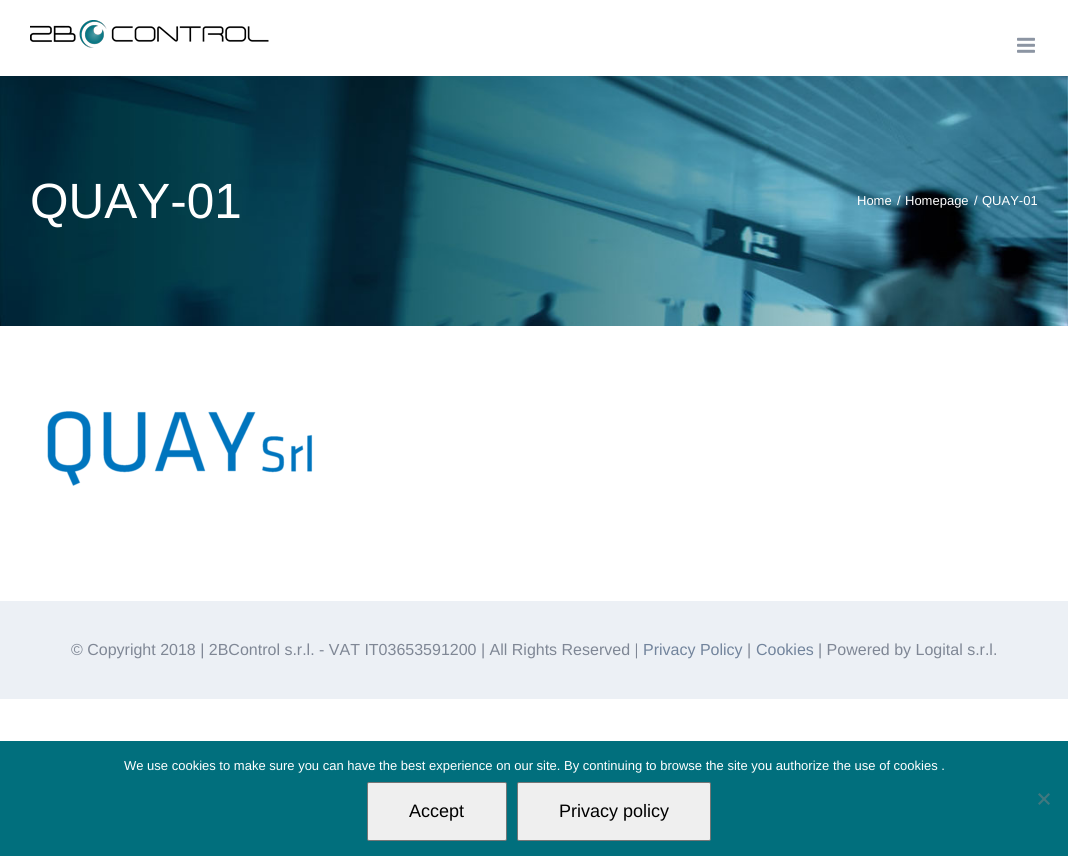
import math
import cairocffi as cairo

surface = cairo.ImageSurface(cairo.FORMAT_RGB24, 1068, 856)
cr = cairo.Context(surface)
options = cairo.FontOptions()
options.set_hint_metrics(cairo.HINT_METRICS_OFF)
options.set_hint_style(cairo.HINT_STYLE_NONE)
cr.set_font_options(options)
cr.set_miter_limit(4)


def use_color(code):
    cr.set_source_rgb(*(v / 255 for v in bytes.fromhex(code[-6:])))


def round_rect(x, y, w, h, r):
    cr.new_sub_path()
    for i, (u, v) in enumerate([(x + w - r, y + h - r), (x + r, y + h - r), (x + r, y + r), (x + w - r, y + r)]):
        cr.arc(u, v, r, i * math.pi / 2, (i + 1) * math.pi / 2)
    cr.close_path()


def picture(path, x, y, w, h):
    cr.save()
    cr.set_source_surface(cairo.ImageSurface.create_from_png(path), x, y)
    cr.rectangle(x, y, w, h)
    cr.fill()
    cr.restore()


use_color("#ffffff")
cr.paint()
picture("img1.png", 30, 20, 239, 28)
picture("img2.png", 1017, 37, 18, 16)
picture("img3.png", 0, 76, 1068, 250)
cr.select_font_face("Liberation Sans")
cr.set_font_size(49.5)
use_color("#ffffff")
cr.move_to(30, 218)
cr.show_text("QUAY-01")
cr.set_font_size(13)
cr.move_to(857, 205)
cr.show_text("Home")
cr.move_to(897, 205)
cr.show_text("/")
cr.move_to(905, 205)
cr.show_text("Homepage")
cr.move_to(974, 205)
cr.show_text("/")
cr.move_to(982, 205)
cr.show_text("QUAY-01")
picture("img4.png", 47, 411, 266, 75)
use_color("#ecf0f5")
cr.rectangle(0, 601, 1068, 98)
cr.fill()
cr.set_font_size(16)
use_color("#7f8795")
cr.move_to(71, 655)
cr.show_text("© Copyright 2018 | 2BControl s.r.l. - VAT IT03653591200 | All Rights Reserved |")
use_color("#72849c")
cr.move_to(643, 655)
cr.show_text("Privacy Policy")
use_color("#7f8795")
cr.move_to(747, 655)
cr.show_text("|")
use_color("#72849c")
cr.move_to(756, 655)
cr.show_text("Cookies")
use_color("#7f8795")
cr.move_to(818, 655)
cr.show_text("| Powered by Logital s.r.l.")
use_color("#016f7d")
cr.rectangle(0, 741, 1068, 115)
cr.fill()
cr.set_font_size(13)
use_color("#ffffff")
cr.move_to(124, 770)
cr.show_text("We use cookies to make sure you can have the best experience on our site. By continuing to browse the site you authorize the use of cookies .")
use_color("#41787f")
cr.new_path()
cr.move_to(1048.5, 793)
cr.line_to(1050, 794.5)
cr.line_to(1039.5, 805)
cr.line_to(1038, 803.5)
cr.close_path()
cr.fill()
cr.new_path()
cr.move_to(1038, 794.5)
cr.line_to(1039.5, 793)
cr.line_to(1050, 803.5)
cr.line_to(1048.5, 805)
cr.close_path()
cr.fill()
use_color("#efefef")
round_rect(367.5, 782.5, 139, 58, 1.5)
cr.fill_preserve()
use_color("#767676")
cr.set_line_width(1)
cr.stroke()
cr.set_font_size(18)
use_color("#000000")
cr.move_to(409, 817)
cr.show_text("Accept")
use_color("#efefef")
round_rect(517.5, 782.5, 193, 58, 1.5)
cr.fill_preserve()
use_color("#767676")
cr.stroke()
use_color("#000000")
cr.move_to(559, 817)
cr.show_text("Privacy policy")
surface.write_to_png("result.png")
